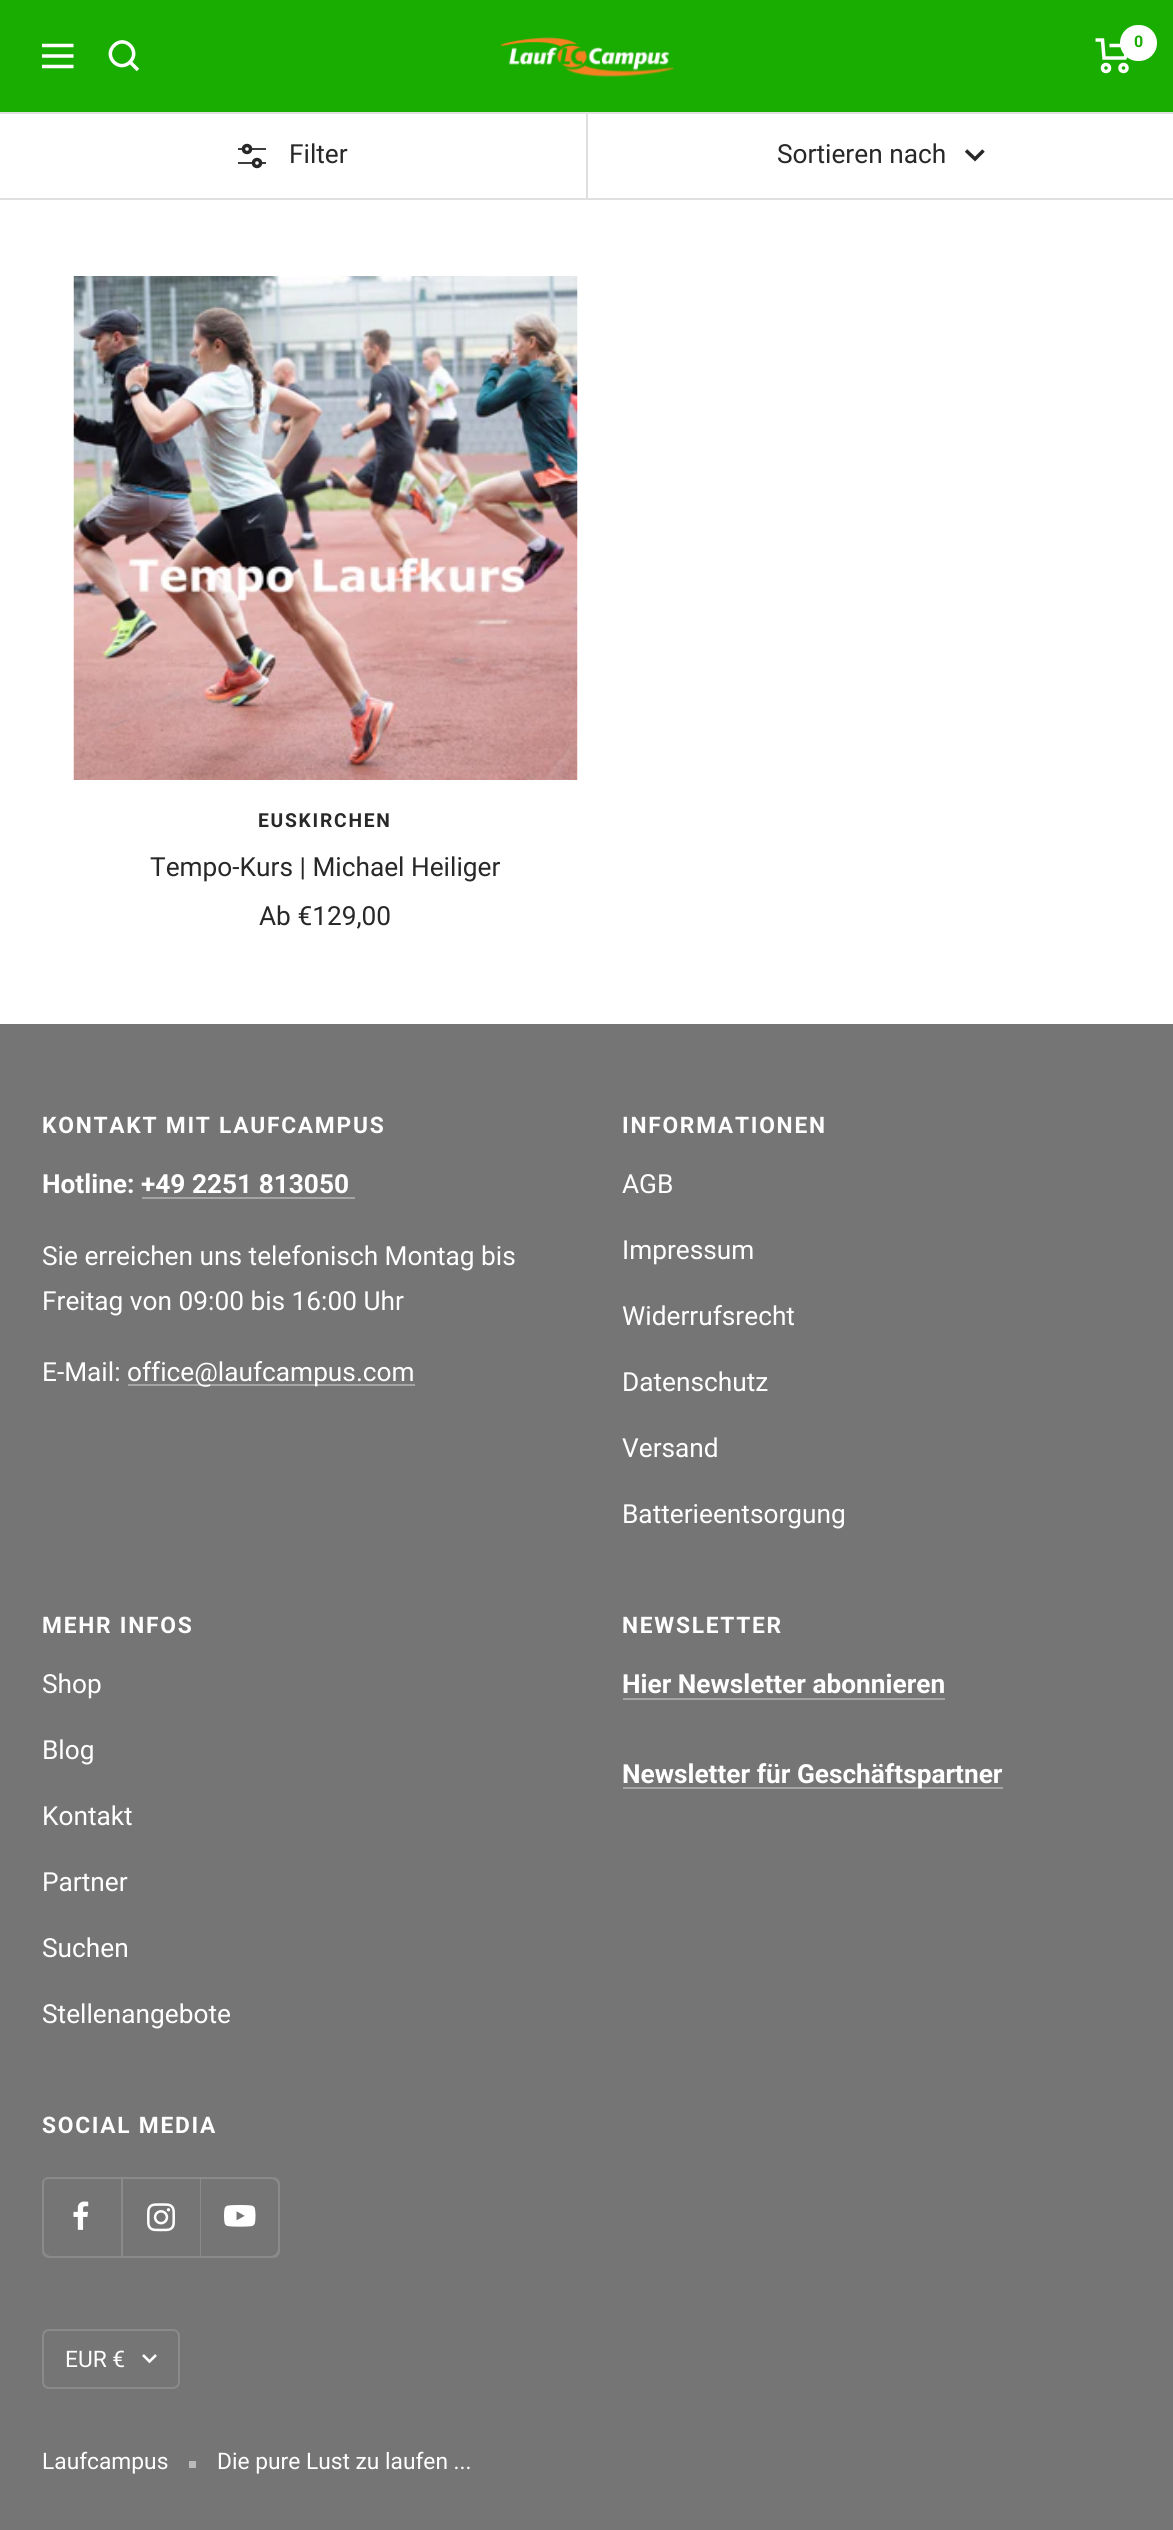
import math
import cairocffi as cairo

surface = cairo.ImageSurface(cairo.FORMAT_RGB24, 1173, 2530)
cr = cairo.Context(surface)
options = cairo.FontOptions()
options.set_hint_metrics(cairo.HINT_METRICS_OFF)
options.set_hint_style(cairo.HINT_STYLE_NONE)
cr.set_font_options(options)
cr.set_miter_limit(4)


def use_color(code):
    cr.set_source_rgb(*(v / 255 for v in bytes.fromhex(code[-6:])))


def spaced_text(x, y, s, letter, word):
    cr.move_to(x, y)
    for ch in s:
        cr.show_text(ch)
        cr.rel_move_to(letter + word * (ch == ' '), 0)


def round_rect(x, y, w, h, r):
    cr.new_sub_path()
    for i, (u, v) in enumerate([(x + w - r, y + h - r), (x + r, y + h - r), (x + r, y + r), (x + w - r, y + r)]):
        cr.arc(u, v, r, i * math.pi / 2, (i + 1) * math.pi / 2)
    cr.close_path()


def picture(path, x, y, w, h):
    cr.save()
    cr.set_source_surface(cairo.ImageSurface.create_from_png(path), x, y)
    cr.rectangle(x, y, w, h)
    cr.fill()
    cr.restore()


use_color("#ffffff")
cr.paint()
use_color("#18ad00")
cr.rectangle(0, 0, 1173, 112)
cr.fill()
cr.new_path()
cr.move_to(42, 45.5)
cr.line_to(73.5, 45.5)
cr.move_to(42, 66.5)
cr.line_to(73.5, 66.5)
cr.close_path()
cr.move_to(42, 56)
cr.line_to(73.5, 56)
cr.close_path()
use_color("#ffffff")
cr.set_line_width(3.5)
cr.stroke()
cr.new_path()
cr.move_to(130, 62)
cr.curve_to(141, 51, 125, 34.5, 114, 45.5)
cr.curve_to(103, 56.5, 119, 73, 130, 62)
cr.close_path()
cr.move_to(130, 62)
cr.line_to(138, 70)
cr.stroke()
picture("img1.png", 500, 37, 174, 40)
cr.new_path()
cr.move_to(1095.5, 40)
cr.line_to(1102.5, 40)
cr.line_to(1104, 58)
cr.line_to(1125, 58)
cr.line_to(1129, 45.5)
cr.line_to(1109.5, 45.5)
cr.stroke()
cr.arc(1106, 68, 3.5, 0, 2 * math.pi)
cr.stroke()
cr.arc(1123.5, 68, 3.5, 0, 2 * math.pi)
cr.stroke()
round_rect(1120, 25, 37, 36, 18)
cr.fill()
cr.select_font_face("Roboto", cairo.FONT_SLANT_NORMAL, cairo.FONT_WEIGHT_BOLD)
cr.set_font_size(16)
use_color("#18ad00")
cr.move_to(1134, 47)
cr.show_text("0")
use_color("#dfdfdf")
cr.rectangle(0, 112, 1173, 2)
cr.fill()
cr.rectangle(0, 198, 1173, 2)
cr.fill()
cr.new_path()
cr.move_to(238, 149)
cr.line_to(266, 149)
cr.move_to(238, 163)
cr.line_to(266, 163)
use_color("#282828")
cr.set_line_width(1.8)
cr.stroke()
use_color("#ffffff")
cr.arc(247, 149, 3.5, 0, 2 * math.pi)
cr.fill_preserve()
use_color("#282828")
cr.set_line_width(3.5)
cr.stroke()
use_color("#ffffff")
cr.arc(257, 163, 3.5, 0, 2 * math.pi)
cr.fill_preserve()
use_color("#282828")
cr.stroke()
cr.select_font_face("Roboto")
cr.set_font_size(26.25)
cr.move_to(289, 163)
cr.show_text("Filter")
use_color("#dfdfdf")
cr.rectangle(586, 112, 2, 88)
cr.fill()
use_color("#282828")
cr.move_to(777, 163)
cr.show_text("Sortieren nach")
cr.new_path()
cr.move_to(966, 150.5)
cr.line_to(975, 159)
cr.line_to(983.5, 150.5)
cr.stroke()
picture("img2.png", 73, 276, 505, 504)
cr.select_font_face("Roboto", cairo.FONT_SLANT_NORMAL, cairo.FONT_WEIGHT_BOLD)
cr.set_font_size(19.25)
spaced_text(258, 827, "EUSKIRCHEN", 1.75, 0)
cr.select_font_face("Roboto")
cr.set_font_size(26.25)
cr.move_to(150, 876)
cr.show_text("Tempo-Kurs | Michael Heiliger")
cr.move_to(259, 925)
cr.show_text("Ab €129,00")
use_color("#757575")
cr.rectangle(0, 1024, 1173, 1506)
cr.fill()
cr.select_font_face("Roboto", cairo.FONT_SLANT_NORMAL, cairo.FONT_WEIGHT_BOLD)
cr.set_font_size(22.75)
use_color("#ffffff")
spaced_text(42, 1133, "KONTAKT MIT LAUFCAMPUS", 1.75, 0)
cr.set_font_size(26.25)
cr.move_to(42, 1193)
cr.show_text("Hotline: +49 2251 813050")
use_color("#a5a5a5")
cr.rectangle(142, 1197, 213, 2)
cr.fill()
cr.select_font_face("Roboto")
use_color("#ffffff")
cr.move_to(42, 1265)
cr.show_text("Sie erreichen uns telefonisch Montag bis")
cr.move_to(42, 1310)
cr.show_text("Freitag von 09:00 bis 16:00 Uhr")
cr.move_to(42, 1381)
cr.show_text("E-Mail:")
use_color("#a5a5a5")
cr.rectangle(128, 1384, 287, 2)
cr.fill()
use_color("#ffffff")
cr.move_to(127, 1381)
cr.show_text("office@laufcampus.com")
cr.select_font_face("Roboto", cairo.FONT_SLANT_NORMAL, cairo.FONT_WEIGHT_BOLD)
cr.set_font_size(22.75)
spaced_text(622, 1133, "INFORMATIONEN", 1.75, 0)
cr.select_font_face("Roboto")
cr.set_font_size(26.25)
cr.move_to(622, 1193)
cr.show_text("AGB")
cr.move_to(622, 1259)
cr.show_text("Impressum")
cr.move_to(622, 1325)
cr.show_text("Widerrufsrecht")
cr.move_to(622, 1391)
cr.show_text("Datenschutz")
cr.move_to(622, 1457)
cr.show_text("Versand")
cr.move_to(622, 1523)
cr.show_text("Batterieentsorgung")
cr.select_font_face("Roboto", cairo.FONT_SLANT_NORMAL, cairo.FONT_WEIGHT_BOLD)
cr.set_font_size(22.75)
spaced_text(42, 1633, "MEHR INFOS", 1.75, 0)
cr.select_font_face("Roboto")
cr.set_font_size(26.25)
cr.move_to(42, 1693)
cr.show_text("Shop")
cr.move_to(42, 1759)
cr.show_text("Blog")
cr.move_to(42, 1825)
cr.show_text("Kontakt")
cr.move_to(42, 1891)
cr.show_text("Partner")
cr.move_to(42, 1957)
cr.show_text("Suchen")
cr.move_to(42, 2023)
cr.show_text("Stellenangebote")
cr.select_font_face("Roboto", cairo.FONT_SLANT_NORMAL, cairo.FONT_WEIGHT_BOLD)
cr.set_font_size(22.75)
spaced_text(622, 1633, "NEWSLETTER", 1.75, 0)
cr.set_font_size(26.25)
cr.move_to(622, 1693)
cr.show_text("Hier Newsletter abonnieren")
use_color("#a5a5a5")
cr.rectangle(623, 1698, 322, 2)
cr.fill()
cr.rectangle(623, 1787, 380, 2)
cr.fill()
use_color("#ffffff")
cr.move_to(622, 1783)
cr.show_text("Newsletter für Geschäftspartner")
cr.set_font_size(22.75)
spaced_text(42, 2133, "SOCIAL MEDIA", 1.75, 0)
use_color("#8a8a8a")
cr.new_path()
cr.move_to(45, 2254)
cr.curve_to(46, 2257, 48, 2258, 51, 2258)
cr.line_to(123, 2258)
cr.line_to(123, 2179)
cr.line_to(121, 2179)
cr.line_to(121, 2256)
cr.line_to(49, 2256)
cr.curve_to(47, 2256, 46, 2255, 45, 2254)
cr.close_path()
cr.fill()
cr.new_path()
cr.move_to(42, 2249)
cr.line_to(42, 2251)
cr.curve_to(42, 2255, 45, 2258, 49, 2258)
cr.line_to(121, 2258)
cr.line_to(121, 2179)
cr.line_to(121, 2256)
cr.line_to(49, 2256)
cr.curve_to(45, 2256, 42, 2253, 42, 2249)
cr.close_path()
cr.fill()
cr.new_path()
cr.move_to(49, 2256)
cr.line_to(123, 2256)
cr.line_to(123, 2177)
cr.line_to(121, 2177)
cr.line_to(121, 2256)
cr.close_path()
cr.fill()
cr.new_path()
cr.move_to(49, 2179)
cr.line_to(121, 2179)
cr.line_to(121, 2177)
cr.line_to(49, 2177)
cr.curve_to(45, 2177, 42, 2180, 42, 2184)
cr.line_to(42, 2186)
cr.curve_to(42, 2182, 45, 2179, 49, 2179)
cr.close_path()
cr.fill()
cr.new_path()
cr.move_to(49, 2177)
cr.curve_to(45, 2177, 42, 2180, 42, 2184)
cr.line_to(42, 2249)
cr.curve_to(42, 2253, 45, 2256, 49, 2256)
cr.line_to(51, 2256)
cr.curve_to(47, 2256, 44, 2253, 44, 2249)
cr.line_to(44, 2184)
cr.curve_to(44, 2180, 47, 2177, 51, 2177)
cr.close_path()
cr.fill()
picture("img3.png", 73, 2201, 16, 29)
cr.new_path()
cr.move_to(123, 2256)
cr.line_to(123, 2258)
cr.line_to(201, 2258)
cr.line_to(201, 2179)
cr.line_to(200, 2179)
cr.line_to(200, 2256)
cr.close_path()
cr.fill()
cr.new_path()
cr.move_to(123, 2256)
cr.line_to(201, 2256)
cr.line_to(201, 2177)
cr.line_to(200, 2177)
cr.line_to(200, 2256)
cr.close_path()
cr.fill()
cr.rectangle(121, 2177, 79, 2)
cr.fill()
picture("img4.png", 147, 2203, 28, 29)
cr.new_path()
cr.move_to(201, 2256)
cr.line_to(201, 2258)
cr.line_to(273, 2258)
cr.curve_to(277, 2258, 280, 2255, 280, 2251)
cr.line_to(280, 2186)
cr.curve_to(280, 2184, 279, 2182, 277, 2180)
cr.line_to(278, 2184)
cr.line_to(278, 2249)
cr.curve_to(278, 2253, 275, 2256, 271, 2256)
cr.close_path()
cr.fill()
cr.new_path()
cr.move_to(200, 2256)
cr.line_to(200, 2258)
cr.line_to(271, 2258)
cr.curve_to(275, 2258, 278, 2255, 278, 2251)
cr.curve_to(277, 2254, 274, 2256, 271, 2256)
cr.close_path()
cr.fill()
cr.new_path()
cr.move_to(201, 2256)
cr.line_to(273, 2256)
cr.curve_to(277, 2256, 280, 2253, 280, 2249)
cr.line_to(280, 2184)
cr.curve_to(280, 2180, 277, 2177, 273, 2177)
cr.line_to(271, 2177)
cr.curve_to(275, 2177, 278, 2180, 278, 2184)
cr.line_to(278, 2249)
cr.curve_to(278, 2253, 275, 2256, 271, 2256)
cr.close_path()
cr.fill()
cr.new_path()
cr.move_to(200, 2179)
cr.line_to(271, 2179)
cr.curve_to(275, 2179, 278, 2182, 278, 2186)
cr.line_to(278, 2184)
cr.curve_to(278, 2180, 275, 2177, 271, 2177)
cr.line_to(200, 2177)
cr.close_path()
cr.fill()
picture("img5.png", 224, 2205, 32, 22)
round_rect(43, 2330, 136, 58, 6)
cr.set_line_width(2)
cr.stroke()
cr.select_font_face("Roboto")
use_color("#ffffff")
cr.move_to(65, 2367)
cr.show_text("EUR €")
cr.new_path()
cr.move_to(143, 2355)
cr.line_to(149.5, 2361.5)
cr.line_to(156, 2355)
cr.set_line_width(2.6)
cr.stroke()
cr.move_to(42, 2469)
cr.show_text("Laufcampus")
use_color("#bababa")
cr.rectangle(189, 2461, 7, 7)
cr.fill()
use_color("#ffffff")
cr.move_to(217, 2469)
cr.show_text("Die pure Lust zu laufen ...")
surface.write_to_png("result.png")
